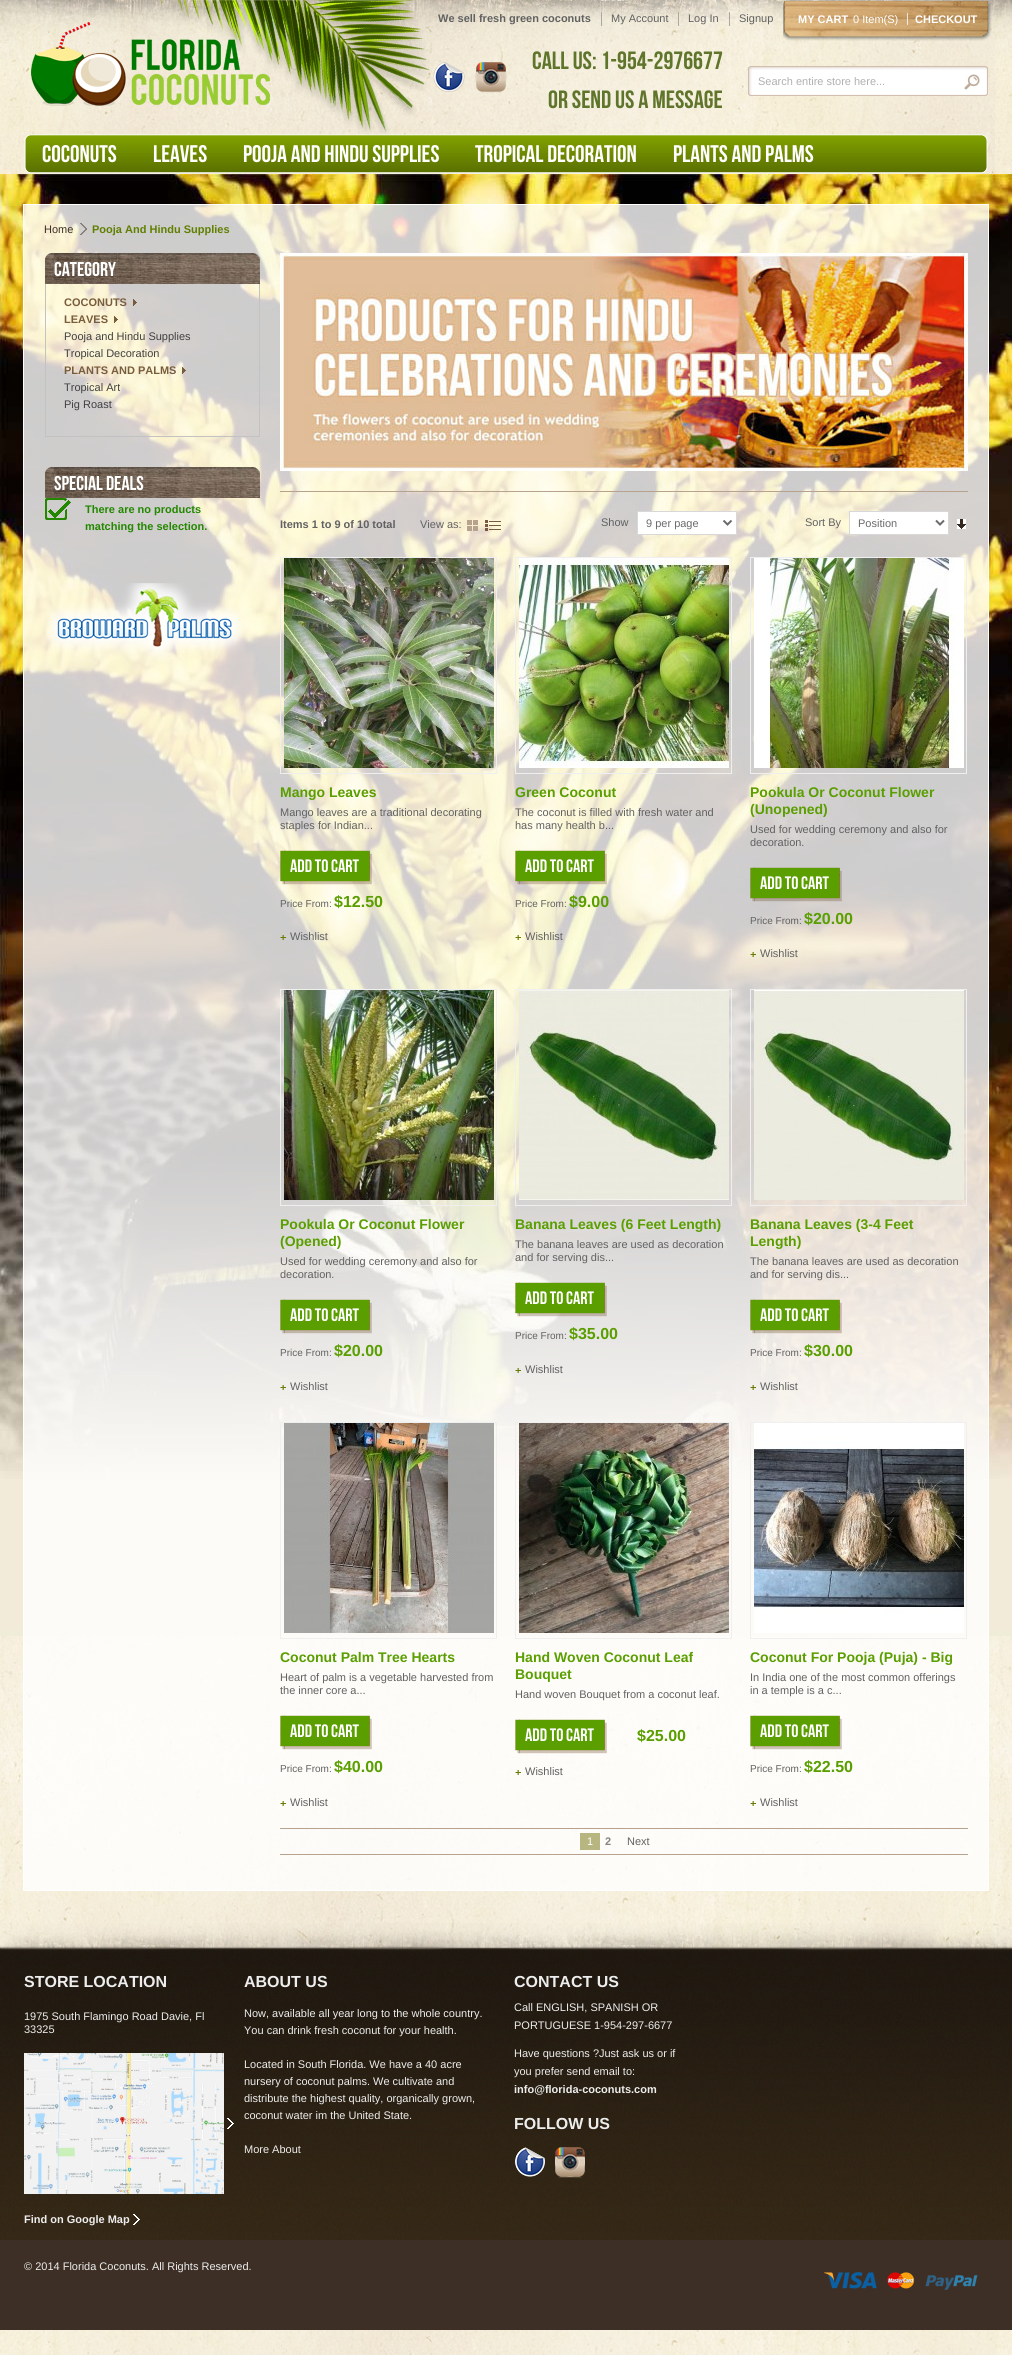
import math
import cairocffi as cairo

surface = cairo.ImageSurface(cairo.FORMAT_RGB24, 1012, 2355)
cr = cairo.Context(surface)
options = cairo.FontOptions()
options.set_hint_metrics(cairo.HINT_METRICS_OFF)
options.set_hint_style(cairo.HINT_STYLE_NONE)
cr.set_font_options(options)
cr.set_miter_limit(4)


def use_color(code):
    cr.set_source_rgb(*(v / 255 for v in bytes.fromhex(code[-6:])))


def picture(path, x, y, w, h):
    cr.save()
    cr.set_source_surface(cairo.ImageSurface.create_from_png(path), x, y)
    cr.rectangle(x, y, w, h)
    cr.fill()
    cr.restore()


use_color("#ffffff")
cr.paint()
picture("img1.png", 0, 0, 1012, 2355)
picture("img2.png", 0, 0, 1012, 66)
picture("img3.png", 160, 0, 270, 135)
picture("img4.png", 31, 22, 239, 84)
cr.select_font_face("Liberation Sans", cairo.FONT_SLANT_NORMAL, cairo.FONT_WEIGHT_BOLD)
cr.set_font_size(11)
use_color("#616161")
cr.move_to(438, 22)
cr.show_text("We sell fresh green coconuts")
picture("img5.png", 601, 12, 1, 14)
cr.select_font_face("Liberation Sans")
cr.move_to(611, 22)
cr.show_text("My Account")
picture("img5.png", 678, 12, 1, 14)
cr.move_to(688, 22)
cr.show_text("Log In")
picture("img5.png", 729, 12, 1, 14)
cr.move_to(739, 22)
cr.show_text("Signup")
picture("img6.png", 783, 0, 11, 41)
picture("img7.png", 793, 0, 199, 41)
cr.select_font_face("Liberation Sans", cairo.FONT_SLANT_NORMAL, cairo.FONT_WEIGHT_BOLD)
use_color("#ffffff")
cr.move_to(798, 23)
cr.show_text("MY CART")
cr.select_font_face("Liberation Sans")
cr.move_to(853, 23)
cr.show_text("0 Item(S)")
cr.select_font_face("Liberation Sans", cairo.FONT_SLANT_NORMAL, cairo.FONT_WEIGHT_BOLD)
cr.move_to(915, 23)
cr.show_text("CHECKOUT")
cr.set_source_rgba(1, 1, 1, 0.76)
cr.rectangle(907, 13, 1, 12)
cr.fill()
picture("img8.png", 433, 62, 32, 30)
picture("img9.png", 475, 62, 32, 31)
cr.select_font_face("Bebas Neue")
cr.set_font_size(25)
use_color("#5f752c")
cr.move_to(532, 69)
cr.show_text("CALL US: 1-954-2976677")
cr.move_to(548, 108)
cr.show_text("OR SEND US A MESSAGE")
picture("img10.png", 748, 66, 240, 30)
cr.select_font_face("Liberation Sans")
cr.set_font_size(11)
use_color("#b0b0b0")
cr.move_to(758, 85)
cr.show_text("Search entire store here...")
picture("img11.png", 964, 74, 16, 16)
picture("img12.png", 24, 134, 964, 40)
cr.select_font_face("Bebas Neue")
cr.set_font_size(24)
use_color("#ffffff")
cr.move_to(42, 162)
cr.show_text("COCONUTS")
cr.move_to(153, 162)
cr.show_text("LEAVES")
cr.move_to(243, 162)
cr.show_text("POOJA AND HINDU SUPPLIES")
cr.move_to(475, 162)
cr.show_text("TROPICAL DECORATION")
cr.move_to(673, 162)
cr.show_text("PLANTS AND PALMS")
picture("img13.png", 0, 174, 1012, 1462)
cr.set_source_rgba(1, 1, 1, 0.8)
cr.rectangle(23.5, 204.5, 965, 1686)
cr.fill_preserve()
use_color("#ffffff")
cr.set_line_width(1)
cr.stroke()
cr.select_font_face("Liberation Sans")
cr.set_font_size(11)
use_color("#3d2f25")
cr.move_to(44, 233)
cr.show_text("Home")
picture("img14.png", 80, 223, 7, 12)
cr.select_font_face("Liberation Sans", cairo.FONT_SLANT_NORMAL, cairo.FONT_WEIGHT_BOLD)
use_color("#607f00")
cr.move_to(92, 233)
cr.show_text("Pooja And Hindu Supplies")
picture("img15.png", 45, 253, 9, 31)
picture("img16.png", 54, 253, 206, 31)
cr.select_font_face("Bebas Neue")
cr.set_font_size(20)
use_color("#ffffff")
cr.move_to(54, 276)
cr.show_text("CATEGORY")
use_color("#c2c2c2")
cr.rectangle(259, 284, 1, 153)
cr.fill()
cr.rectangle(45, 436, 215, 1)
cr.fill()
cr.rectangle(45, 284, 1, 153)
cr.fill()
picture("img17.png", 133, 299, 4, 7)
cr.select_font_face("Liberation Sans", cairo.FONT_SLANT_NORMAL, cairo.FONT_WEIGHT_BOLD)
cr.set_font_size(11)
use_color("#785d3c")
cr.move_to(64, 306)
cr.show_text("COCONUTS")
picture("img18.png", 114, 316, 4, 7)
cr.move_to(64, 323)
cr.show_text("LEAVES")
cr.select_font_face("Liberation Sans")
use_color("#404040")
cr.move_to(64, 340)
cr.show_text("Pooja and Hindu Supplies")
cr.move_to(64, 357)
cr.show_text("Tropical Decoration")
picture("img19.png", 182, 367, 4, 7)
cr.select_font_face("Liberation Sans", cairo.FONT_SLANT_NORMAL, cairo.FONT_WEIGHT_BOLD)
use_color("#785d3c")
cr.move_to(64, 374)
cr.show_text("PLANTS AND PALMS")
cr.select_font_face("Liberation Sans")
use_color("#404040")
cr.move_to(64, 391)
cr.show_text("Tropical Art")
cr.move_to(64, 408)
cr.show_text("Pig Roast")
picture("img20.png", 45, 467, 9, 31)
picture("img21.png", 54, 467, 206, 31)
cr.select_font_face("Bebas Neue")
cr.set_font_size(20)
use_color("#ffffff")
cr.move_to(54, 490)
cr.show_text("SPECIAL DEALS")
picture("img22.png", 45, 498, 26, 22)
cr.select_font_face("Liberation Sans", cairo.FONT_SLANT_NORMAL, cairo.FONT_WEIGHT_BOLD)
cr.set_font_size(11)
use_color("#238800")
cr.move_to(85, 513)
cr.show_text("There are no products")
cr.move_to(85, 530)
cr.show_text("matching the selection.")
picture("img23.png", 45, 583, 200, 77)
picture("img24.png", 280, 253, 688, 218)
use_color("#b6a28d")
cr.rectangle(280, 491, 688, 1)
cr.fill()
use_color("#616161")
cr.move_to(280, 528)
cr.show_text("Items 1 to 9 of 10 total")
cr.select_font_face("Liberation Sans")
cr.move_to(420, 528)
cr.show_text("View as:")
picture("img25.png", 467, 520, 11, 11)
picture("img26.png", 485, 520, 16, 11)
cr.move_to(601, 526)
cr.show_text("Show")
use_color("#ffffff")
cr.rectangle(637.5, 511.5, 99, 23)
cr.fill_preserve()
use_color("#d8d8d8")
cr.stroke()
cr.new_path()
cr.move_to(723.5, 520.5)
cr.line_to(727.5, 524.5)
cr.line_to(731.5, 520.5)
use_color("#6a6a6a")
cr.set_line_width(2)
cr.stroke()
cr.move_to(646, 527)
cr.show_text("9 per page")
use_color("#616161")
cr.move_to(805, 526)
cr.show_text("Sort By")
use_color("#ffffff")
cr.rectangle(849.5, 511.5, 99, 23)
cr.fill_preserve()
use_color("#d8d8d8")
cr.set_line_width(1)
cr.stroke()
cr.new_path()
cr.move_to(936, 520.5)
cr.line_to(940, 524.5)
cr.line_to(944, 520.5)
use_color("#6a6a6a")
cr.set_line_width(2)
cr.stroke()
cr.move_to(858, 527)
cr.show_text("Position")
picture("img27.png", 957, 519, 9, 10)
cr.rectangle(280.5, 557.5, 216, 216)
use_color("#efefef")
cr.set_line_width(1)
cr.stroke()
picture("img28.png", 284, 558, 210, 210)
cr.select_font_face("Liberation Sans", cairo.FONT_SLANT_NORMAL, cairo.FONT_WEIGHT_BOLD)
cr.set_font_size(14)
use_color("#5a9e00")
cr.move_to(280, 797)
cr.show_text("Mango Leaves")
cr.select_font_face("Liberation Sans")
cr.set_font_size(11)
use_color("#616161")
cr.move_to(280, 816)
cr.show_text("Mango leaves are a traditional decorating")
cr.move_to(280, 829)
cr.show_text("staples for Indian...")
picture("img29.png", 280, 850, 5, 35)
picture("img30.png", 284, 850, 88, 35)
cr.select_font_face("Bebas Neue")
cr.set_font_size(18)
use_color("#ffffff")
cr.move_to(290, 872)
cr.show_text("ADD TO CART")
cr.select_font_face("Liberation Sans")
cr.set_font_size(10)
use_color("#616161")
cr.move_to(280, 907)
cr.show_text("Price From:")
cr.select_font_face("Liberation Sans", cairo.FONT_SLANT_NORMAL, cairo.FONT_WEIGHT_BOLD)
cr.set_font_size(16)
use_color("#5a9e00")
cr.move_to(334, 907)
cr.show_text("$12.50")
picture("img31.png", 280, 935, 6, 5)
cr.select_font_face("Liberation Sans")
cr.set_font_size(11)
use_color("#616161")
cr.move_to(290, 940)
cr.show_text("Wishlist")
cr.rectangle(515.5, 557.5, 216, 216)
use_color("#efefef")
cr.stroke()
picture("img32.png", 519, 558, 210, 210)
cr.select_font_face("Liberation Sans", cairo.FONT_SLANT_NORMAL, cairo.FONT_WEIGHT_BOLD)
cr.set_font_size(14)
use_color("#5a9e00")
cr.move_to(515, 797)
cr.show_text("Green Coconut")
cr.select_font_face("Liberation Sans")
cr.set_font_size(11)
use_color("#616161")
cr.move_to(515, 816)
cr.show_text("The coconut is filled with fresh water and")
cr.move_to(515, 829)
cr.show_text("has many health b...")
picture("img33.png", 515, 850, 5, 35)
picture("img34.png", 519, 850, 88, 35)
cr.select_font_face("Bebas Neue")
cr.set_font_size(18)
use_color("#ffffff")
cr.move_to(525, 872)
cr.show_text("ADD TO CART")
cr.select_font_face("Liberation Sans")
cr.set_font_size(10)
use_color("#616161")
cr.move_to(515, 907)
cr.show_text("Price From:")
cr.select_font_face("Liberation Sans", cairo.FONT_SLANT_NORMAL, cairo.FONT_WEIGHT_BOLD)
cr.set_font_size(16)
use_color("#5a9e00")
cr.move_to(569, 907)
cr.show_text("$9.00")
picture("img35.png", 515, 935, 6, 5)
cr.select_font_face("Liberation Sans")
cr.set_font_size(11)
use_color("#616161")
cr.move_to(525, 940)
cr.show_text("Wishlist")
cr.rectangle(750.5, 557.5, 216, 216)
use_color("#efefef")
cr.stroke()
picture("img36.png", 754, 558, 210, 210)
cr.select_font_face("Liberation Sans", cairo.FONT_SLANT_NORMAL, cairo.FONT_WEIGHT_BOLD)
cr.set_font_size(14)
use_color("#5a9e00")
cr.move_to(750, 797)
cr.show_text("Pookula Or Coconut Flower")
cr.move_to(750, 814)
cr.show_text("(Unopened)")
cr.select_font_face("Liberation Sans")
cr.set_font_size(11)
use_color("#616161")
cr.move_to(750, 833)
cr.show_text("Used for wedding ceremony and also for")
cr.move_to(750, 846)
cr.show_text("decoration.")
picture("img37.png", 750, 867, 5, 35)
picture("img38.png", 754, 867, 88, 35)
cr.select_font_face("Bebas Neue")
cr.set_font_size(18)
use_color("#ffffff")
cr.move_to(760, 889)
cr.show_text("ADD TO CART")
cr.select_font_face("Liberation Sans")
cr.set_font_size(10)
use_color("#616161")
cr.move_to(750, 924)
cr.show_text("Price From:")
cr.select_font_face("Liberation Sans", cairo.FONT_SLANT_NORMAL, cairo.FONT_WEIGHT_BOLD)
cr.set_font_size(16)
use_color("#5a9e00")
cr.move_to(804, 924)
cr.show_text("$20.00")
picture("img39.png", 750, 952, 6, 5)
cr.select_font_face("Liberation Sans")
cr.set_font_size(11)
use_color("#616161")
cr.move_to(760, 957)
cr.show_text("Wishlist")
cr.rectangle(280.5, 989.5, 216, 216)
use_color("#efefef")
cr.stroke()
picture("img40.png", 284, 990, 210, 210)
cr.select_font_face("Liberation Sans", cairo.FONT_SLANT_NORMAL, cairo.FONT_WEIGHT_BOLD)
cr.set_font_size(14)
use_color("#5a9e00")
cr.move_to(280, 1229)
cr.show_text("Pookula Or Coconut Flower")
cr.move_to(280, 1246)
cr.show_text("(Opened)")
cr.select_font_face("Liberation Sans")
cr.set_font_size(11)
use_color("#616161")
cr.move_to(280, 1265)
cr.show_text("Used for wedding ceremony and also for")
cr.move_to(280, 1278)
cr.show_text("decoration.")
picture("img41.png", 280, 1299, 5, 35)
picture("img42.png", 284, 1299, 88, 35)
cr.select_font_face("Bebas Neue")
cr.set_font_size(18)
use_color("#ffffff")
cr.move_to(290, 1321)
cr.show_text("ADD TO CART")
cr.select_font_face("Liberation Sans")
cr.set_font_size(10)
use_color("#616161")
cr.move_to(280, 1356)
cr.show_text("Price From:")
cr.select_font_face("Liberation Sans", cairo.FONT_SLANT_NORMAL, cairo.FONT_WEIGHT_BOLD)
cr.set_font_size(16)
use_color("#5a9e00")
cr.move_to(334, 1356)
cr.show_text("$20.00")
picture("img43.png", 280, 1385, 6, 5)
cr.select_font_face("Liberation Sans")
cr.set_font_size(11)
use_color("#616161")
cr.move_to(290, 1390)
cr.show_text("Wishlist")
cr.rectangle(515.5, 989.5, 216, 216)
use_color("#efefef")
cr.stroke()
picture("img44.png", 519, 990, 210, 210)
cr.select_font_face("Liberation Sans", cairo.FONT_SLANT_NORMAL, cairo.FONT_WEIGHT_BOLD)
cr.set_font_size(14)
use_color("#5a9e00")
cr.move_to(515, 1229)
cr.show_text("Banana Leaves (6 Feet Length)")
cr.select_font_face("Liberation Sans")
cr.set_font_size(11)
use_color("#616161")
cr.move_to(515, 1248)
cr.show_text("The banana leaves are used as decoration")
cr.move_to(515, 1261)
cr.show_text("and for serving dis...")
picture("img45.png", 515, 1282, 5, 35)
picture("img46.png", 519, 1282, 88, 35)
cr.select_font_face("Bebas Neue")
cr.set_font_size(18)
use_color("#ffffff")
cr.move_to(525, 1304)
cr.show_text("ADD TO CART")
cr.select_font_face("Liberation Sans")
cr.set_font_size(10)
use_color("#616161")
cr.move_to(515, 1339)
cr.show_text("Price From:")
cr.select_font_face("Liberation Sans", cairo.FONT_SLANT_NORMAL, cairo.FONT_WEIGHT_BOLD)
cr.set_font_size(16)
use_color("#5a9e00")
cr.move_to(569, 1339)
cr.show_text("$35.00")
picture("img47.png", 515, 1368, 6, 5)
cr.select_font_face("Liberation Sans")
cr.set_font_size(11)
use_color("#616161")
cr.move_to(525, 1373)
cr.show_text("Wishlist")
cr.rectangle(750.5, 989.5, 216, 216)
use_color("#efefef")
cr.stroke()
picture("img48.png", 754, 990, 210, 210)
cr.select_font_face("Liberation Sans", cairo.FONT_SLANT_NORMAL, cairo.FONT_WEIGHT_BOLD)
cr.set_font_size(14)
use_color("#5a9e00")
cr.move_to(750, 1229)
cr.show_text("Banana Leaves (3-4 Feet")
cr.move_to(750, 1246)
cr.show_text("Length)")
cr.select_font_face("Liberation Sans")
cr.set_font_size(11)
use_color("#616161")
cr.move_to(750, 1265)
cr.show_text("The banana leaves are used as decoration")
cr.move_to(750, 1278)
cr.show_text("and for serving dis...")
picture("img49.png", 750, 1299, 5, 35)
picture("img50.png", 754, 1299, 88, 35)
cr.select_font_face("Bebas Neue")
cr.set_font_size(18)
use_color("#ffffff")
cr.move_to(760, 1321)
cr.show_text("ADD TO CART")
cr.select_font_face("Liberation Sans")
cr.set_font_size(10)
use_color("#616161")
cr.move_to(750, 1356)
cr.show_text("Price From:")
cr.select_font_face("Liberation Sans", cairo.FONT_SLANT_NORMAL, cairo.FONT_WEIGHT_BOLD)
cr.set_font_size(16)
use_color("#5a9e00")
cr.move_to(804, 1356)
cr.show_text("$30.00")
picture("img51.png", 750, 1385, 6, 5)
cr.select_font_face("Liberation Sans")
cr.set_font_size(11)
use_color("#616161")
cr.move_to(760, 1390)
cr.show_text("Wishlist")
cr.rectangle(280.5, 1422.5, 216, 216)
use_color("#efefef")
cr.stroke()
picture("img52.png", 284, 1423, 210, 210)
cr.select_font_face("Liberation Sans", cairo.FONT_SLANT_NORMAL, cairo.FONT_WEIGHT_BOLD)
cr.set_font_size(14)
use_color("#5a9e00")
cr.move_to(280, 1662)
cr.show_text("Coconut Palm Tree Hearts")
cr.select_font_face("Liberation Sans")
cr.set_font_size(11)
use_color("#616161")
cr.move_to(280, 1681)
cr.show_text("Heart of palm is a vegetable harvested from")
cr.move_to(280, 1694)
cr.show_text("the inner core a...")
picture("img53.png", 280, 1715, 5, 35)
picture("img54.png", 284, 1715, 88, 35)
cr.select_font_face("Bebas Neue")
cr.set_font_size(18)
use_color("#ffffff")
cr.move_to(290, 1737)
cr.show_text("ADD TO CART")
cr.select_font_face("Liberation Sans")
cr.set_font_size(10)
use_color("#616161")
cr.move_to(280, 1772)
cr.show_text("Price From:")
cr.select_font_face("Liberation Sans", cairo.FONT_SLANT_NORMAL, cairo.FONT_WEIGHT_BOLD)
cr.set_font_size(16)
use_color("#5a9e00")
cr.move_to(334, 1772)
cr.show_text("$40.00")
picture("img55.png", 280, 1801, 6, 5)
cr.select_font_face("Liberation Sans")
cr.set_font_size(11)
use_color("#616161")
cr.move_to(290, 1806)
cr.show_text("Wishlist")
cr.rectangle(515.5, 1422.5, 216, 216)
use_color("#efefef")
cr.stroke()
picture("img56.png", 519, 1423, 210, 210)
cr.select_font_face("Liberation Sans", cairo.FONT_SLANT_NORMAL, cairo.FONT_WEIGHT_BOLD)
cr.set_font_size(14)
use_color("#5a9e00")
cr.move_to(515, 1662)
cr.show_text("Hand Woven Coconut Leaf")
cr.move_to(515, 1679)
cr.show_text("Bouquet")
cr.select_font_face("Liberation Sans")
cr.set_font_size(11)
use_color("#616161")
cr.move_to(515, 1698)
cr.show_text("Hand woven Bouquet from a coconut leaf.")
picture("img57.png", 515, 1719, 5, 35)
picture("img58.png", 519, 1719, 88, 35)
cr.select_font_face("Bebas Neue")
cr.set_font_size(18)
use_color("#ffffff")
cr.move_to(525, 1741)
cr.show_text("ADD TO CART")
cr.select_font_face("Liberation Sans", cairo.FONT_SLANT_NORMAL, cairo.FONT_WEIGHT_BOLD)
cr.set_font_size(16)
use_color("#5a9e00")
cr.move_to(637, 1741)
cr.show_text("$25.00")
picture("img59.png", 515, 1770, 6, 5)
cr.select_font_face("Liberation Sans")
cr.set_font_size(11)
use_color("#616161")
cr.move_to(525, 1775)
cr.show_text("Wishlist")
cr.rectangle(750.5, 1422.5, 216, 216)
use_color("#efefef")
cr.stroke()
picture("img60.png", 754, 1423, 210, 210)
cr.select_font_face("Liberation Sans", cairo.FONT_SLANT_NORMAL, cairo.FONT_WEIGHT_BOLD)
cr.set_font_size(14)
use_color("#5a9e00")
cr.move_to(750, 1662)
cr.show_text("Coconut For Pooja (Puja) - Big")
cr.select_font_face("Liberation Sans")
cr.set_font_size(11)
use_color("#616161")
cr.move_to(750, 1681)
cr.show_text("In India one of the most common offerings")
cr.move_to(750, 1694)
cr.show_text("in a temple is a c...")
picture("img61.png", 750, 1715, 5, 35)
picture("img62.png", 754, 1715, 88, 35)
cr.select_font_face("Bebas Neue")
cr.set_font_size(18)
use_color("#ffffff")
cr.move_to(760, 1737)
cr.show_text("ADD TO CART")
cr.select_font_face("Liberation Sans")
cr.set_font_size(10)
use_color("#616161")
cr.move_to(750, 1772)
cr.show_text("Price From:")
cr.select_font_face("Liberation Sans", cairo.FONT_SLANT_NORMAL, cairo.FONT_WEIGHT_BOLD)
cr.set_font_size(16)
use_color("#5a9e00")
cr.move_to(804, 1772)
cr.show_text("$22.50")
picture("img63.png", 750, 1801, 6, 5)
cr.select_font_face("Liberation Sans")
cr.set_font_size(11)
use_color("#616161")
cr.move_to(760, 1806)
cr.show_text("Wishlist")
use_color("#b6a28d")
cr.rectangle(280, 1828, 688, 1)
cr.fill()
cr.rectangle(280, 1854, 688, 1)
cr.fill()
use_color("#b7b680")
cr.rectangle(580, 1833, 20, 17)
cr.fill()
use_color("#ffffff")
cr.move_to(587, 1845)
cr.show_text("1")
cr.select_font_face("Liberation Sans", cairo.FONT_SLANT_NORMAL, cairo.FONT_WEIGHT_BOLD)
use_color("#858484")
cr.move_to(605, 1845)
cr.show_text("2")
cr.select_font_face("Liberation Sans")
use_color("#616161")
cr.move_to(627, 1845)
cr.show_text("Next")
picture("img64.png", 0, 1923, 1012, 317)
cr.select_font_face("Liberation Sans", cairo.FONT_SLANT_NORMAL, cairo.FONT_WEIGHT_BOLD)
cr.set_font_size(16)
use_color("#ededed")
cr.move_to(24, 1987)
cr.show_text("STORE LOCATION")
cr.select_font_face("Liberation Sans")
cr.set_font_size(11)
cr.move_to(24, 2020)
cr.show_text("1975 South Flamingo Road Davie, Fl")
cr.move_to(24, 2033)
cr.show_text("33325")
picture("img65.png", 227, 2118, 7, 11)
picture("img66.png", 24, 2053, 200, 141)
picture("img67.png", 133, 2214, 7, 11)
cr.select_font_face("Liberation Sans", cairo.FONT_SLANT_NORMAL, cairo.FONT_WEIGHT_BOLD)
cr.move_to(24, 2223)
cr.show_text("Find on Google Map")
cr.set_font_size(16)
cr.move_to(244, 1987)
cr.show_text("ABOUT US")
cr.select_font_face("Liberation Sans")
cr.set_font_size(11)
cr.move_to(244, 2017)
cr.show_text("Now, available all year long to the whole country.")
cr.move_to(244, 2034)
cr.show_text("You can drink fresh coconut for your health.")
cr.move_to(244, 2068)
cr.show_text("Located in South Florida. We have a 40 acre")
cr.move_to(244, 2085)
cr.show_text("nursery of coconut palms. We cultivate and")
cr.move_to(244, 2102)
cr.show_text("distribute the highest quality, organically grown,")
cr.move_to(244, 2119)
cr.show_text("coconut water im the United State.")
cr.move_to(244, 2153)
cr.show_text("More About")
cr.select_font_face("Liberation Sans", cairo.FONT_SLANT_NORMAL, cairo.FONT_WEIGHT_BOLD)
cr.set_font_size(16)
cr.move_to(514, 1987)
cr.show_text("CONTACT US")
cr.select_font_face("Liberation Sans")
cr.set_font_size(11)
cr.move_to(514, 2011)
cr.show_text("Call ENGLISH, SPANISH OR")
cr.move_to(514, 2029)
cr.show_text("PORTUGUESE 1-954-297-6677")
cr.move_to(514, 2057)
cr.show_text("Have questions ?Just ask us or if")
cr.move_to(514, 2075)
cr.show_text("you prefer send email to:")
cr.select_font_face("Liberation Sans", cairo.FONT_SLANT_NORMAL, cairo.FONT_WEIGHT_BOLD)
cr.move_to(514, 2093)
cr.show_text("info@florida-coconuts.com")
cr.set_font_size(16)
cr.move_to(514, 2129)
cr.show_text("FOLLOW US")
picture("img68.png", 515, 2147, 30, 30)
picture("img69.png", 555, 2147, 30, 31)
use_color("#3d2f25")
cr.rectangle(0, 2240, 1012, 90)
cr.fill()
cr.select_font_face("Liberation Sans")
cr.set_font_size(11)
use_color("#ededed")
cr.move_to(24, 2270)
cr.show_text("© 2014 Florida Coconuts. All Rights Reserved.")
picture("img70.png", 824, 2272, 53, 17)
picture("img71.png", 887, 2272, 28, 17)
picture("img72.png", 925, 2275, 53, 15)
surface.write_to_png("result.png")
